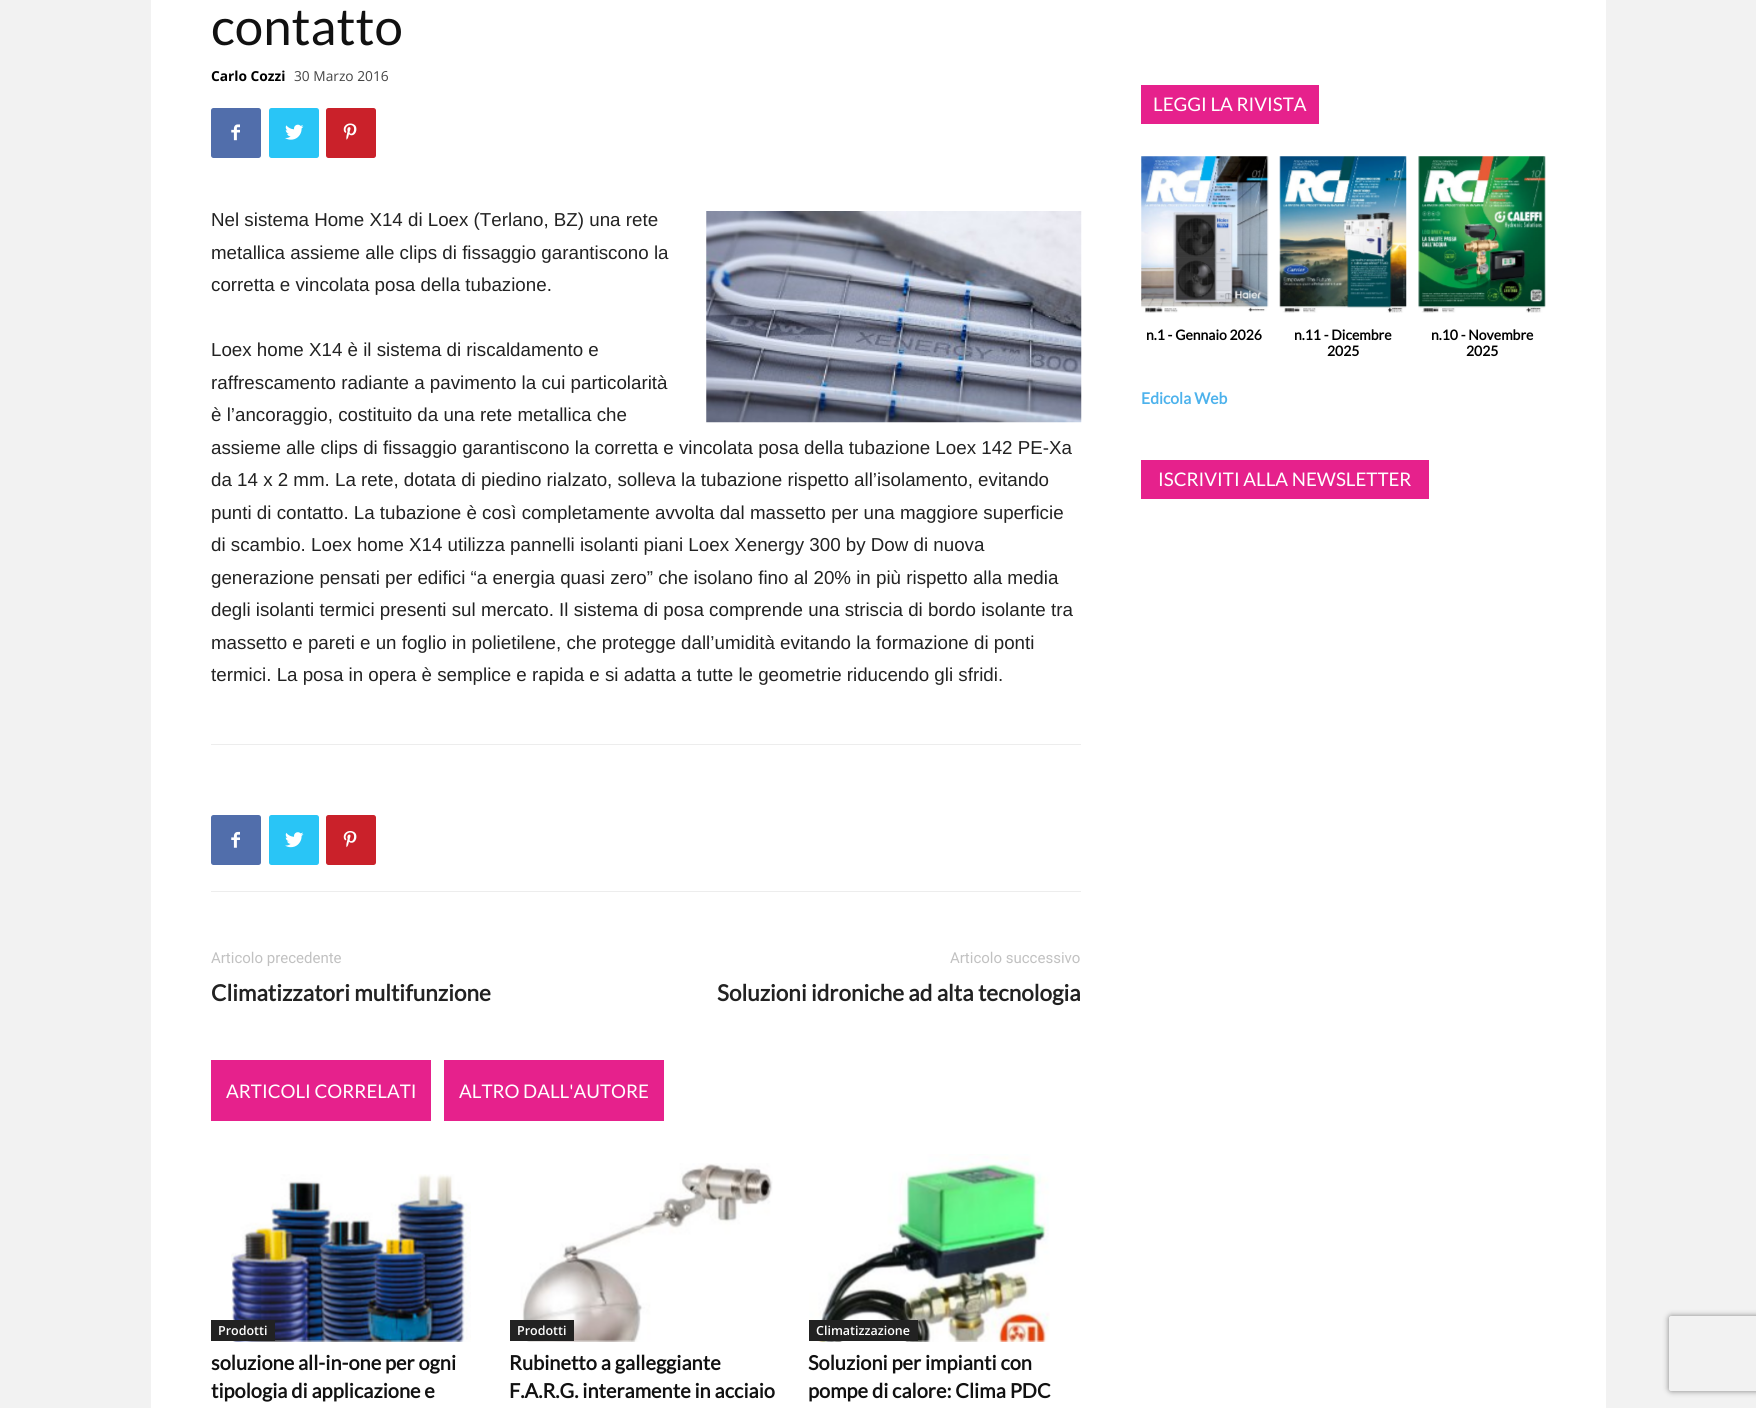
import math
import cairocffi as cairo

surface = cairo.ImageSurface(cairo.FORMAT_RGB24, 1756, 1408)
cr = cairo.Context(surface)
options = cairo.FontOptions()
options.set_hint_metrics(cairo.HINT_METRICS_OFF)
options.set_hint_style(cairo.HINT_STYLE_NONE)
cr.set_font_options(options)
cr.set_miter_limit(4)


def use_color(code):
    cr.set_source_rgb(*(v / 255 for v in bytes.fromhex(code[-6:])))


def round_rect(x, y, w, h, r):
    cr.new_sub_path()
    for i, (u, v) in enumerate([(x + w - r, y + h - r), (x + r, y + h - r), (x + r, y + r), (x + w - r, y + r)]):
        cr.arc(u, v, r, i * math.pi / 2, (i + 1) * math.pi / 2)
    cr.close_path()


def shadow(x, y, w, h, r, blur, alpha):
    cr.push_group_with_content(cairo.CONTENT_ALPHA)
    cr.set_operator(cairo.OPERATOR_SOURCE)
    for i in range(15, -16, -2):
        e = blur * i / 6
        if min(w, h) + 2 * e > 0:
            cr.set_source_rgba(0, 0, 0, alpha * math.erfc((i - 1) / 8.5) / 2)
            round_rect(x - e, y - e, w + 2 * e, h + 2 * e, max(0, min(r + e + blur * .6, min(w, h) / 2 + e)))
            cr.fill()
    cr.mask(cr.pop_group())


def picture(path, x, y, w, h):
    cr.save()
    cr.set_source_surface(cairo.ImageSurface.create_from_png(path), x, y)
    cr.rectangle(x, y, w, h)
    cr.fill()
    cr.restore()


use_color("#f2f2f2")
cr.paint()
use_color("#ffffff")
cr.rectangle(151, 0, 1455, 1408)
cr.fill()
cr.select_font_face("Lato")
cr.set_font_size(51)
use_color("#111111")
cr.move_to(211, 45)
cr.show_text("contatto")
cr.select_font_face("Open Sans", cairo.FONT_SLANT_NORMAL, cairo.FONT_WEIGHT_BOLD)
cr.set_font_size(13.75)
use_color("#000000")
cr.move_to(211, 81)
cr.show_text("Carlo Cozzi")
cr.select_font_face("Open Sans")
use_color("#444444")
cr.move_to(294, 81)
cr.show_text("30 Marzo 2016")
use_color("#516eab")
round_rect(211, 108, 50, 50, 2.5)
cr.fill()
picture("img1.png", 231, 124, 9, 17)
use_color("#29c5f6")
round_rect(269, 108, 50, 50, 2.5)
cr.fill()
picture("img2.png", 285, 124, 19, 16)
use_color("#ca212a")
round_rect(326, 108, 50, 50, 2.5)
cr.fill()
picture("img3.png", 343, 123, 14, 17)
cr.select_font_face("Liberation Sans")
cr.set_font_size(18.75)
use_color("#222222")
cr.move_to(211, 226)
cr.show_text("Nel sistema Home X14 di Loex (Terlano, BZ) una rete")
picture("img4.png", 706, 211, 376, 212)
cr.move_to(211, 259)
cr.show_text("metallica assieme alle clips di fissaggio garantiscono la")
cr.move_to(211, 291)
cr.show_text("corretta e vincolata posa della tubazione.")
cr.move_to(211, 356)
cr.show_text("Loex home X14 è il sistema di riscaldamento e")
cr.move_to(211, 389)
cr.show_text("raffrescamento radiante a pavimento la cui particolarità")
cr.move_to(211, 421)
cr.show_text("è l’ancoraggio, costituito da una rete metallica che")
cr.move_to(211, 454)
cr.show_text("assieme alle clips di fissaggio garantiscono la corretta e vincolata posa della tubazione Loex 142 PE-Xa")
cr.move_to(211, 486)
cr.show_text("da 14 x 2 mm. La rete, dotata di piedino rialzato, solleva la tubazione rispetto all’isolamento, evitando")
cr.move_to(211, 519)
cr.show_text("punti di contatto. La tubazione è così completamente avvolta dal massetto per una maggiore superficie")
cr.move_to(211, 551)
cr.show_text("di scambio. Loex home X14 utilizza pannelli isolanti piani Loex Xenergy 300 by Dow di nuova")
cr.move_to(211, 584)
cr.show_text("generazione pensati per edifici “a energia quasi zero” che isolano fino al 20% in più rispetto alla media")
cr.move_to(211, 616)
cr.show_text("degli isolanti termici presenti sul mercato. Il sistema di posa comprende una striscia di bordo isolante tra")
cr.move_to(211, 649)
cr.show_text("massetto e pareti e un foglio in polietilene, che protegge dall’umidità evitando la formazione di ponti")
cr.move_to(211, 681)
cr.show_text("termici. La posa in opera è semplice e rapida e si adatta a tutte le geometrie riducendo gli sfridi.")
use_color("#ededed")
cr.rectangle(211, 744, 870, 1)
cr.fill()
cr.rectangle(211, 891, 870, 1)
cr.fill()
use_color("#516eab")
round_rect(211, 815, 50, 50, 2.5)
cr.fill()
picture("img5.png", 231, 831, 9, 17)
use_color("#29c5f6")
round_rect(269, 815, 50, 50, 2.5)
cr.fill()
picture("img6.png", 285, 832, 19, 16)
use_color("#ca212a")
round_rect(326, 815, 50, 50, 2.5)
cr.fill()
picture("img7.png", 343, 831, 14, 17)
cr.select_font_face("Roboto")
cr.set_font_size(15)
use_color("#c1c1c1")
cr.move_to(211, 963)
cr.show_text("Articolo precedente")
cr.select_font_face("Lato", cairo.FONT_SLANT_NORMAL, cairo.FONT_WEIGHT_BOLD)
cr.set_font_size(22.5)
use_color("#222222")
cr.move_to(211, 1001)
cr.show_text("Climatizzatori multifunzione")
cr.select_font_face("Roboto")
cr.set_font_size(15)
use_color("#c1c1c1")
cr.move_to(950, 963)
cr.show_text("Articolo successivo")
cr.select_font_face("Lato", cairo.FONT_SLANT_NORMAL, cairo.FONT_WEIGHT_BOLD)
cr.set_font_size(22.5)
use_color("#222222")
cr.move_to(717, 1001)
cr.show_text("Soluzioni idroniche ad alta tecnologia")
use_color("#e6218c")
cr.rectangle(211, 1060, 220, 61)
cr.fill()
cr.select_font_face("Lato")
cr.set_font_size(18.75)
use_color("#ffffff")
cr.move_to(226, 1098)
cr.show_text("ARTICOLI CORRELATI")
use_color("#e6218c")
cr.rectangle(444, 1060, 220, 61)
cr.fill()
use_color("#ffffff")
cr.move_to(459, 1098)
cr.show_text("ALTRO DALL'AUTORE")
picture("img8.png", 231, 1174, 240, 168)
use_color("#222222")
cr.rectangle(211, 1320, 64, 21)
cr.fill()
cr.select_font_face("Open Sans SemiBold")
cr.set_font_size(12.5)
use_color("#ffffff")
cr.move_to(218, 1335)
cr.show_text("Prodotti")
cr.select_font_face("Lato", cairo.FONT_SLANT_NORMAL, cairo.FONT_WEIGHT_BOLD)
cr.set_font_size(20)
use_color("#111111")
cr.move_to(211, 1370)
cr.show_text("soluzione all-in-one per ogni")
cr.move_to(211, 1398)
cr.show_text("tipologia di applicazione e")
picture("img9.png", 520, 1163, 253, 179)
use_color("#222222")
cr.rectangle(510, 1320, 64, 21)
cr.fill()
cr.select_font_face("Open Sans SemiBold")
cr.set_font_size(12.5)
use_color("#ffffff")
cr.move_to(517, 1335)
cr.show_text("Prodotti")
cr.select_font_face("Lato", cairo.FONT_SLANT_NORMAL, cairo.FONT_WEIGHT_BOLD)
cr.set_font_size(20)
use_color("#111111")
cr.move_to(509, 1370)
cr.show_text("Rubinetto a galleggiante")
cr.move_to(509, 1398)
cr.show_text("F.A.R.G. interamente in acciaio")
picture("img10.png", 809, 1154, 241, 188)
use_color("#222222")
cr.rectangle(809, 1320, 109, 21)
cr.fill()
cr.select_font_face("Open Sans SemiBold")
cr.set_font_size(12.5)
use_color("#ffffff")
cr.move_to(816, 1335)
cr.show_text("Climatizzazione")
cr.select_font_face("Lato", cairo.FONT_SLANT_NORMAL, cairo.FONT_WEIGHT_BOLD)
cr.set_font_size(20)
use_color("#111111")
cr.move_to(808, 1370)
cr.show_text("Soluzioni per impianti con")
cr.move_to(808, 1398)
cr.show_text("pompe di calore: Clima PDC")
use_color("#e6218c")
cr.rectangle(1141, 85, 178, 39)
cr.fill()
cr.select_font_face("Lato")
cr.set_font_size(18.75)
use_color("#ffffff")
cr.move_to(1153, 111)
cr.show_text("LEGGI LA RIVISTA")
picture("img11.png", 1141, 156, 128, 157)
cr.select_font_face("Lato", cairo.FONT_SLANT_NORMAL, cairo.FONT_WEIGHT_BOLD)
cr.set_font_size(14)
use_color("#000000")
cr.move_to(1146, 340)
cr.show_text("n.1 - Gennaio 2026")
picture("img12.png", 1279, 156, 128, 157)
cr.move_to(1294, 340)
cr.show_text("n.11 - Dicembre")
cr.move_to(1327, 356)
cr.show_text("2025")
picture("img13.png", 1418, 156, 128, 157)
cr.move_to(1431, 340)
cr.show_text("n.10 - Novembre")
cr.move_to(1466, 356)
cr.show_text("2025")
cr.set_font_size(15.75)
use_color("#4db2ec")
cr.move_to(1141, 404)
cr.show_text("Edicola Web")
use_color("#e6218c")
cr.rectangle(1141, 460, 288, 39)
cr.fill()
cr.select_font_face("Lato")
cr.set_font_size(18.75)
use_color("#ffffff")
cr.move_to(1158, 486)
cr.show_text("ISCRIVITI ALLA NEWSLETTER")
cr.save()
cr.set_fill_rule(cairo.FILL_RULE_EVEN_ODD)
cr.new_path()
cr.move_to(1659, 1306)
cr.line_to(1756, 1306)
cr.line_to(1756, 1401)
cr.line_to(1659, 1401)
cr.close_path()
cr.move_to(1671.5, 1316)
cr.line_to(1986.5, 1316)
cr.curve_to(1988, 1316, 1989, 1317, 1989, 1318.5)
cr.line_to(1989, 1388.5)
cr.curve_to(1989, 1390, 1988, 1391, 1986.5, 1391)
cr.line_to(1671.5, 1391)
cr.curve_to(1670, 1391, 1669, 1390, 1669, 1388.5)
cr.line_to(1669, 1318.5)
cr.curve_to(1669, 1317, 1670, 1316, 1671.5, 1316)
cr.close_path()
cr.clip()
use_color("#808080")
shadow(1669, 1316, 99, 75, 2.5, 3, 1)
cr.restore()
surface.write_to_png("result.png")
